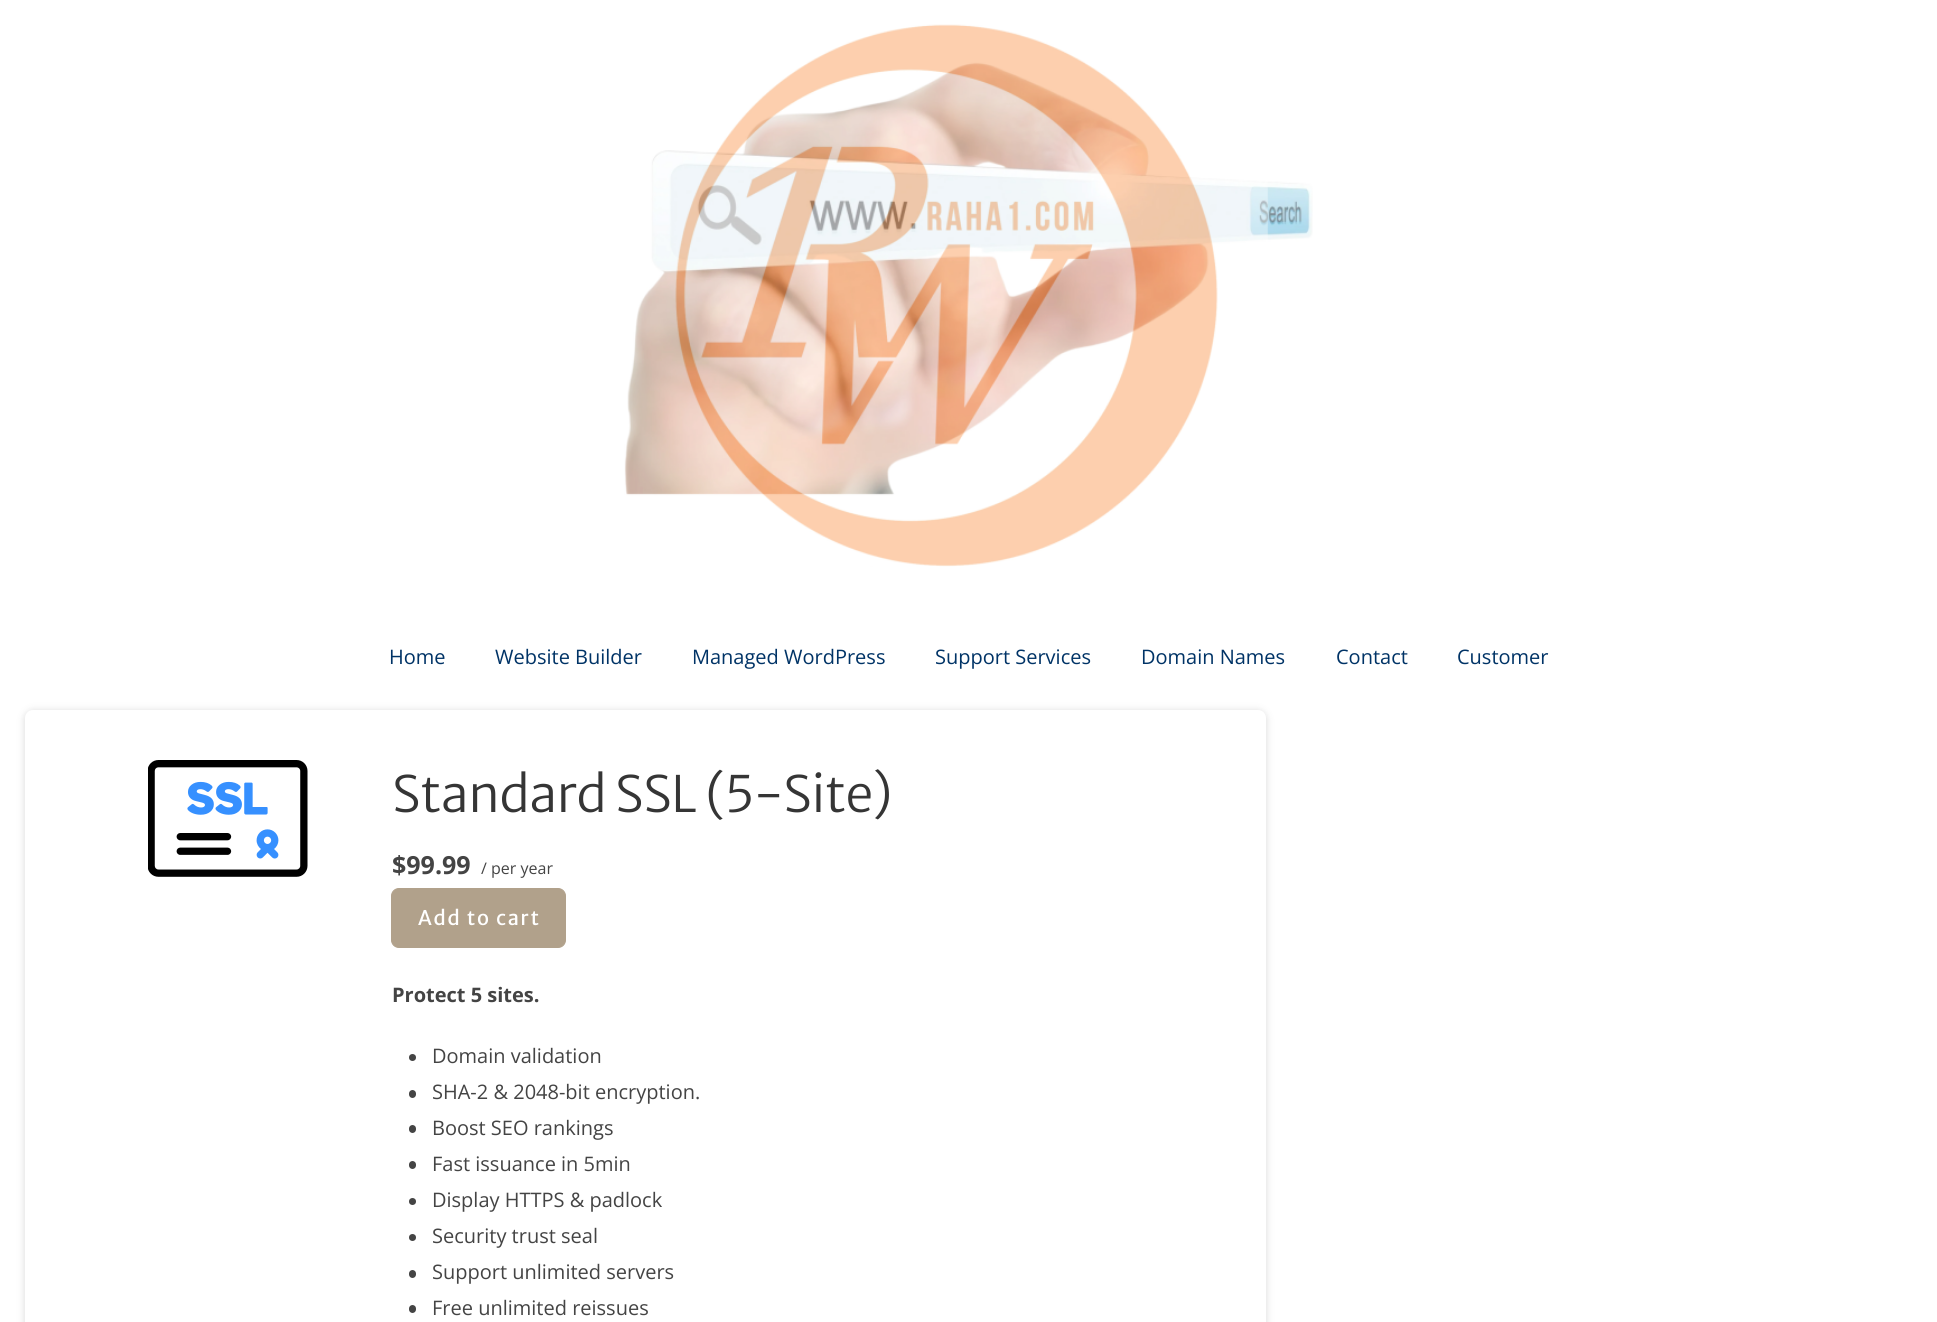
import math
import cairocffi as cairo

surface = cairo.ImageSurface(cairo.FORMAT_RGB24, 1937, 1322)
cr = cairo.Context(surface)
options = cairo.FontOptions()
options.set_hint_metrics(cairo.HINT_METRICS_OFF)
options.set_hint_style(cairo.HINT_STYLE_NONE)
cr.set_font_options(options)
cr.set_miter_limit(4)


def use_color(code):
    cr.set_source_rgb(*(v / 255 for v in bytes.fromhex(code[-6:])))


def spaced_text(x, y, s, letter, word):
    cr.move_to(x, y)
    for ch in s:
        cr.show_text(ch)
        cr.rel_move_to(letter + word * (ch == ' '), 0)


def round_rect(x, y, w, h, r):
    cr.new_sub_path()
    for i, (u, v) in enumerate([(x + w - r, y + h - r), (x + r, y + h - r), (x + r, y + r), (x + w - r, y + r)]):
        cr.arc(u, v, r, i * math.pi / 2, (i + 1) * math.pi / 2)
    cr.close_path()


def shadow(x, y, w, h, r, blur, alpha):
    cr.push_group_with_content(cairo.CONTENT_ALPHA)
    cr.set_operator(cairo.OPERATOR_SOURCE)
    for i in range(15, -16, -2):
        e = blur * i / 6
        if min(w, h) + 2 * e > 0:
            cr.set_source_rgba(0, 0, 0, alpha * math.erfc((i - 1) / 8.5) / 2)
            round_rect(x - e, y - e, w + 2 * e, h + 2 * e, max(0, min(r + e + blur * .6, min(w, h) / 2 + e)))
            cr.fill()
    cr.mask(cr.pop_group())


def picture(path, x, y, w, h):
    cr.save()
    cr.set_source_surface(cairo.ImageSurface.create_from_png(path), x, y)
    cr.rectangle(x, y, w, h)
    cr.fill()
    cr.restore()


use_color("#ffffff")
cr.paint()
picture("img1.png", 624, 24, 689, 543)
cr.select_font_face("Open Sans")
cr.set_font_size(20)
use_color("#003366")
cr.move_to(389, 664)
cr.show_text("Home")
cr.move_to(495, 664)
cr.show_text("Website Builder")
cr.move_to(692, 664)
cr.show_text("Managed WordPress")
cr.move_to(935, 664)
cr.show_text("Support Services")
cr.move_to(1141, 664)
cr.show_text("Domain Names")
cr.move_to(1336, 664)
cr.show_text("Contact")
cr.move_to(1457, 664)
cr.show_text("Customer")
use_color("#666666")
shadow(25, 711, 1241, 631, 8, 4, 0.25)
use_color("#ffffff")
round_rect(25, 710, 1241, 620, 8)
cr.fill()
picture("img2.png", 148, 760, 160, 117)
cr.select_font_face("Merriweather Sans Light")
cr.set_font_size(50)
use_color("#353535")
spaced_text(392, 812, "Standard SSL (5-Site)", -0.4, 0)
cr.select_font_face("Open Sans", cairo.FONT_SLANT_NORMAL, cairo.FONT_WEIGHT_BOLD)
cr.set_font_size(25)
use_color("#444444")
cr.move_to(392, 874)
cr.show_text("$99.99")
cr.select_font_face("Open Sans")
cr.set_font_size(16)
cr.move_to(481, 874)
cr.show_text("/ per year")
use_color("#b1a18b")
round_rect(391.5, 888.5, 174, 59, 7.5)
cr.fill_preserve()
cr.set_line_width(1)
cr.stroke()
cr.select_font_face("Merriweather Sans")
cr.set_font_size(20)
use_color("#ffffff")
spaced_text(418, 925, "Add to cart", 1.75, 0)
cr.select_font_face("Open Sans", cairo.FONT_SLANT_NORMAL, cairo.FONT_WEIGHT_BOLD)
use_color("#444444")
cr.move_to(392, 1002)
cr.show_text("Protect 5 sites.")
cr.new_path()
cr.arc(412.5, 1057.5, 3.5, 0, 2 * math.pi)
cr.fill()
cr.select_font_face("Open Sans")
cr.move_to(432, 1063)
cr.show_text("Domain validation")
round_rect(409, 1090, 7, 8, 3.5)
cr.fill()
cr.move_to(432, 1099)
cr.show_text("SHA-2 & 2048-bit encryption.")
round_rect(409, 1125, 7, 8, 3.5)
cr.fill()
cr.move_to(432, 1135)
cr.show_text("Boost SEO rankings")
round_rect(409, 1161, 7, 8, 3.5)
cr.fill()
cr.move_to(432, 1171)
cr.show_text("Fast issuance in 5min")
cr.new_path()
cr.arc(412.5, 1201.5, 3.5, 0, 2 * math.pi)
cr.fill()
cr.move_to(432, 1207)
cr.show_text("Display HTTPS & padlock")
cr.new_path()
cr.arc(412.5, 1237.5, 3.5, 0, 2 * math.pi)
cr.fill()
cr.move_to(432, 1243)
cr.show_text("Security trust seal")
round_rect(409, 1270, 7, 8, 3.5)
cr.fill()
cr.move_to(432, 1279)
cr.show_text("Support unlimited servers")
round_rect(409, 1305, 7, 8, 3.5)
cr.fill()
cr.move_to(432, 1315)
cr.show_text("Free unlimited reissues")
surface.write_to_png("result.png")
